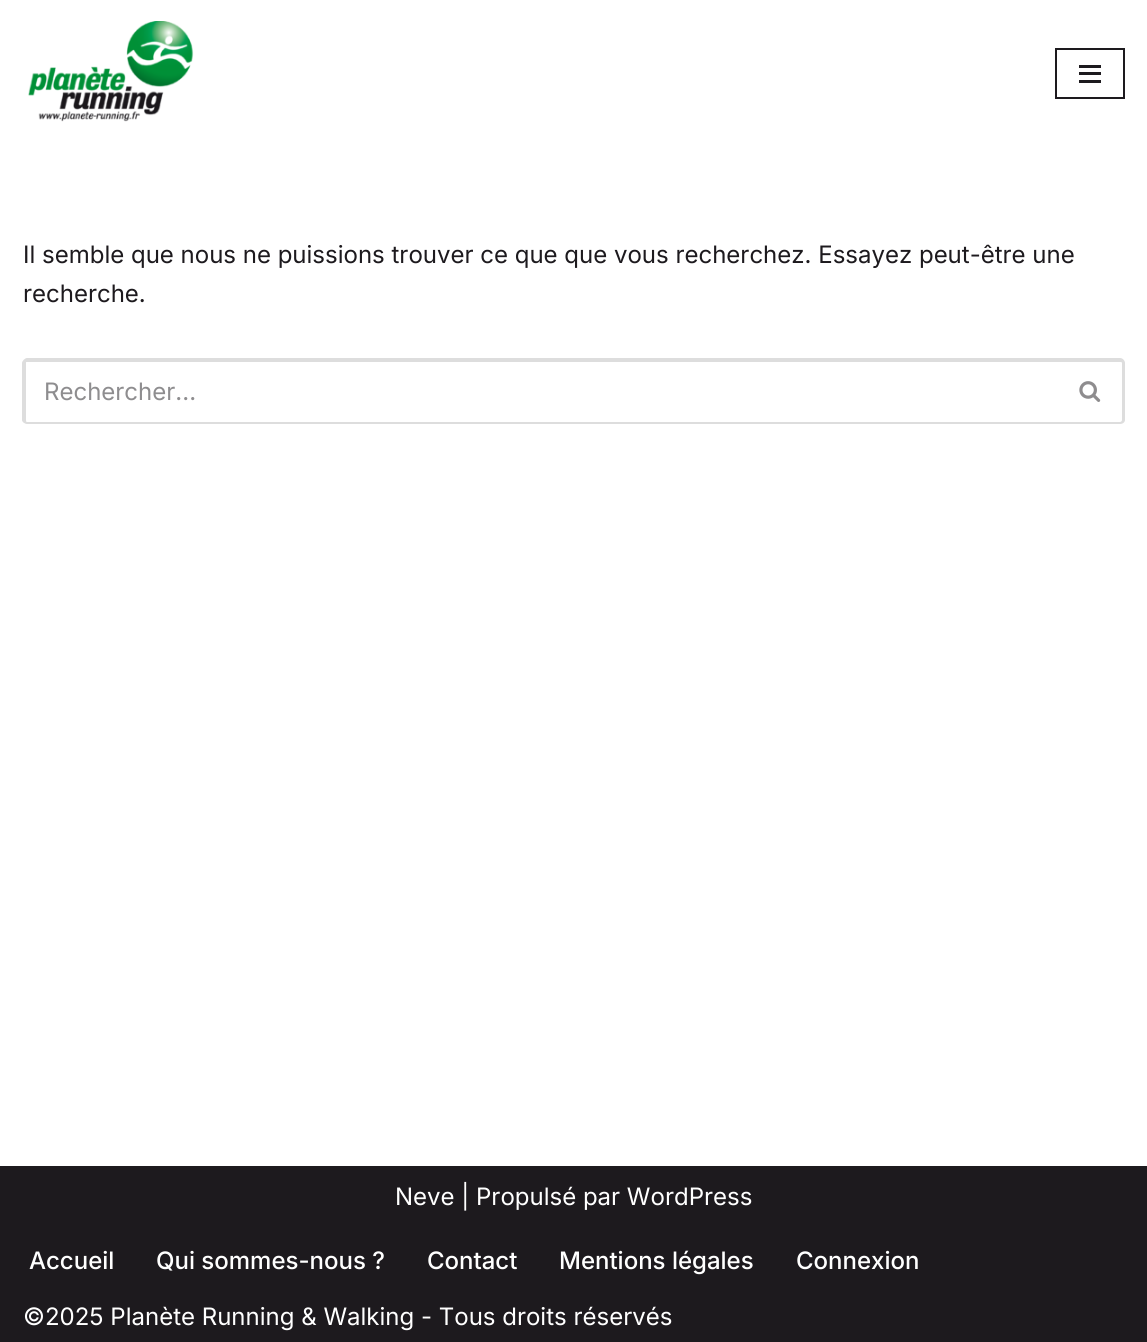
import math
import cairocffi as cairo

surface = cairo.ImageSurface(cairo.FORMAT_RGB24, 1147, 1342)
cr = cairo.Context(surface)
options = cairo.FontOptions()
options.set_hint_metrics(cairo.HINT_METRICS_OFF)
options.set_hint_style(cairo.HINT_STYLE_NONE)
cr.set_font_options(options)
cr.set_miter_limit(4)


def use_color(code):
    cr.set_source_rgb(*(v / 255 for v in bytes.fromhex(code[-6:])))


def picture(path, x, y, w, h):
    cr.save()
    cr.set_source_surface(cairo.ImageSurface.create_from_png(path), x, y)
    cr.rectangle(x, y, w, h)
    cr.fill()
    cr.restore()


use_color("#ffffff")
cr.paint()
picture("img1.png", 28, 21, 166, 101)
cr.rectangle(1056, 49, 68, 49)
use_color("#1d1a1e")
cr.stroke()
cr.rectangle(1079, 65, 22, 3)
cr.fill()
cr.rectangle(1079, 72, 22, 3)
cr.fill()
cr.rectangle(1079, 80, 22, 3)
cr.fill()
cr.select_font_face("Inter")
cr.set_font_size(24)
cr.move_to(23, 263)
cr.show_text("Il semble que nous ne puissions trouver ce que que vous recherchez. Essayez peut-être une")
cr.move_to(23, 302)
cr.show_text("recherche.")
use_color("#dddddd")
cr.set_fill_rule(cairo.FILL_RULE_EVEN_ODD)
cr.new_path()
cr.move_to(27, 358)
cr.line_to(1058, 358)
cr.line_to(1058, 424)
cr.line_to(27, 424)
cr.curve_to(25, 424, 22, 422, 22, 420)
cr.line_to(22, 363)
cr.curve_to(22, 361, 25, 358, 27, 358)
cr.close_path()
cr.move_to(27, 362)
cr.line_to(1058, 362)
cr.line_to(1058, 422)
cr.line_to(27, 422)
cr.curve_to(26, 422, 26, 421, 26, 420)
cr.line_to(26, 363)
cr.curve_to(26, 362, 26, 362, 27, 362)
cr.close_path()
cr.fill()
use_color("#8e8d8f")
cr.move_to(44, 400)
cr.show_text("Rechercher...")
use_color("#dddddd")
cr.new_path()
cr.move_to(1058, 358)
cr.line_to(1120, 358)
cr.curve_to(1123, 358, 1125, 361, 1125, 363)
cr.line_to(1125, 420)
cr.curve_to(1125, 422, 1123, 424, 1120, 424)
cr.line_to(1058, 424)
cr.close_path()
cr.move_to(1058, 362)
cr.line_to(1120, 362)
cr.curve_to(1121, 362, 1122, 362, 1122, 363)
cr.line_to(1122, 420)
cr.curve_to(1122, 421, 1121, 422, 1120, 422)
cr.line_to(1058, 422)
cr.close_path()
cr.fill()
picture("img2.png", 1079, 381, 22, 21)
use_color("#1d1a1e")
cr.rectangle(0, 1166, 1147, 176)
cr.fill()
use_color("#ffffff")
cr.move_to(395, 1205)
cr.show_text("Neve | Propulsé par WordPress")
cr.select_font_face("Inter Medium")
cr.move_to(29, 1269)
cr.show_text("Accueil")
cr.move_to(156, 1269)
cr.show_text("Qui sommes-nous ?")
cr.move_to(427, 1269)
cr.show_text("Contact")
cr.move_to(559, 1269)
cr.show_text("Mentions légales")
cr.move_to(796, 1269)
cr.show_text("Connexion")
cr.select_font_face("Inter")
cr.move_to(23, 1325)
cr.show_text("©2025 Planète Running & Walking - Tous droits réservés")
surface.write_to_png("result.png")
